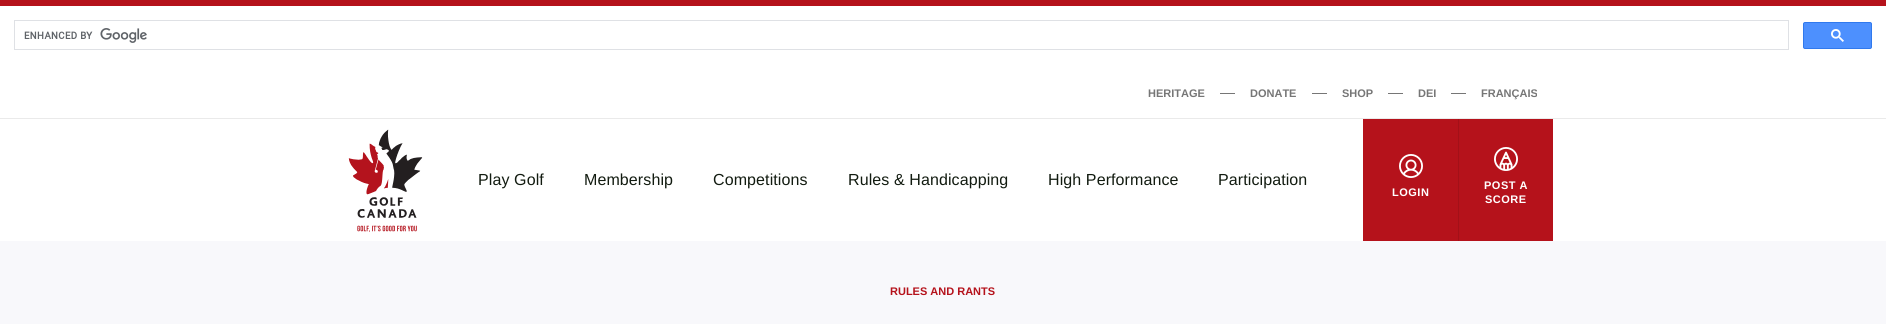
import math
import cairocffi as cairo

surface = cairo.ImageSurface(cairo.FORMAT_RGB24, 1886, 324)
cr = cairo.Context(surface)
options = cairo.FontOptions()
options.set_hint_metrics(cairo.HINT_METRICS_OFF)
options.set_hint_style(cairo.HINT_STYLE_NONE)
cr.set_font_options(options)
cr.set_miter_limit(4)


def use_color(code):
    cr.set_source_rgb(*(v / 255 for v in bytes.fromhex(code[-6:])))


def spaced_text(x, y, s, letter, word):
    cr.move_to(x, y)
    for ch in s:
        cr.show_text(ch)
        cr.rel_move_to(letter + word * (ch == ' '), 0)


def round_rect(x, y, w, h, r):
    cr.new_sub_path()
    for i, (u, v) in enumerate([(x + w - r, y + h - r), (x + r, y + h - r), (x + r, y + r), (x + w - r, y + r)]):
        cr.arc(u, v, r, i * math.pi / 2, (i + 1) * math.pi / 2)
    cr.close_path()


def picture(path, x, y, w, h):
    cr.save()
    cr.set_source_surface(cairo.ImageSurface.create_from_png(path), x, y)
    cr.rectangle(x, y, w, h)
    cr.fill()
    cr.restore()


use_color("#f8f8fb")
cr.paint()
use_color("#ffffff")
cr.rectangle(0, 6, 1886, 235)
cr.fill()
use_color("#b5121b")
cr.rectangle(0, 0, 1886, 6)
cr.fill()
cr.rectangle(14.5, 20.5, 1774, 29)
use_color("#dfe1e5")
cr.set_line_width(1)
cr.stroke()
picture("img1.png", 24, 28, 123, 15)
use_color("#4d90fe")
round_rect(1803.5, 22.5, 68, 26, 1.5)
cr.fill_preserve()
use_color("#3079ed")
cr.stroke()
picture("img2.png", 1831, 29, 13, 13)
use_color("#eaeaea")
cr.rectangle(0, 118, 1886, 1)
cr.fill()
cr.select_font_face("Liberation Sans", cairo.FONT_SLANT_NORMAL, cairo.FONT_WEIGHT_BOLD)
cr.set_font_size(11)
use_color("#767676")
cr.move_to(1148, 97)
cr.show_text("HERITAGE")
cr.rectangle(1220, 93, 15, 1)
cr.fill()
cr.move_to(1250, 97)
cr.show_text("DONATE")
cr.rectangle(1312, 93, 15, 1)
cr.fill()
cr.move_to(1342, 97)
cr.show_text("SHOP")
cr.rectangle(1388, 93, 15, 1)
cr.fill()
cr.move_to(1418, 97)
cr.show_text("DEI")
cr.rectangle(1451, 93, 15, 1)
cr.fill()
cr.move_to(1481, 97)
cr.show_text("FRANÇAIS")
picture("img3.png", 348, 129, 75, 103)
cr.select_font_face("Liberation Sans")
cr.set_font_size(16)
use_color("#121b10")
spaced_text(478, 185, "Play Golf", 0.1, 0)
spaced_text(584, 185, "Membership", 0.1, 0)
spaced_text(713, 185, "Competitions", 0.1, 0)
spaced_text(848, 185, "Rules & Handicapping", 0.1, 0)
spaced_text(1048, 185, "High Performance", 0.1, 0)
spaced_text(1218, 185, "Participation", 0.1, 0)
use_color("#b5121b")
cr.rectangle(1363, 119, 95, 122)
cr.fill()
picture("img4.png", 1399, 154, 24, 24)
cr.select_font_face("Liberation Sans", cairo.FONT_SLANT_NORMAL, cairo.FONT_WEIGHT_BOLD)
cr.set_font_size(11)
use_color("#ffffff")
spaced_text(1392, 196, "LOGIN", 0.5, 0)
use_color("#b5121b")
cr.rectangle(1459, 119, 94, 122)
cr.fill()
use_color("#a31018")
cr.rectangle(1458, 119, 1, 122)
cr.fill()
picture("img5.png", 1494, 147, 24, 24)
use_color("#ffffff")
spaced_text(1484, 189, "POST A", 0.5, 0)
spaced_text(1485, 203, "SCORE", 0.5, 0)
use_color("#b5121b")
cr.move_to(890, 295)
cr.show_text("RULES AND RANTS")
surface.write_to_png("result.png")
